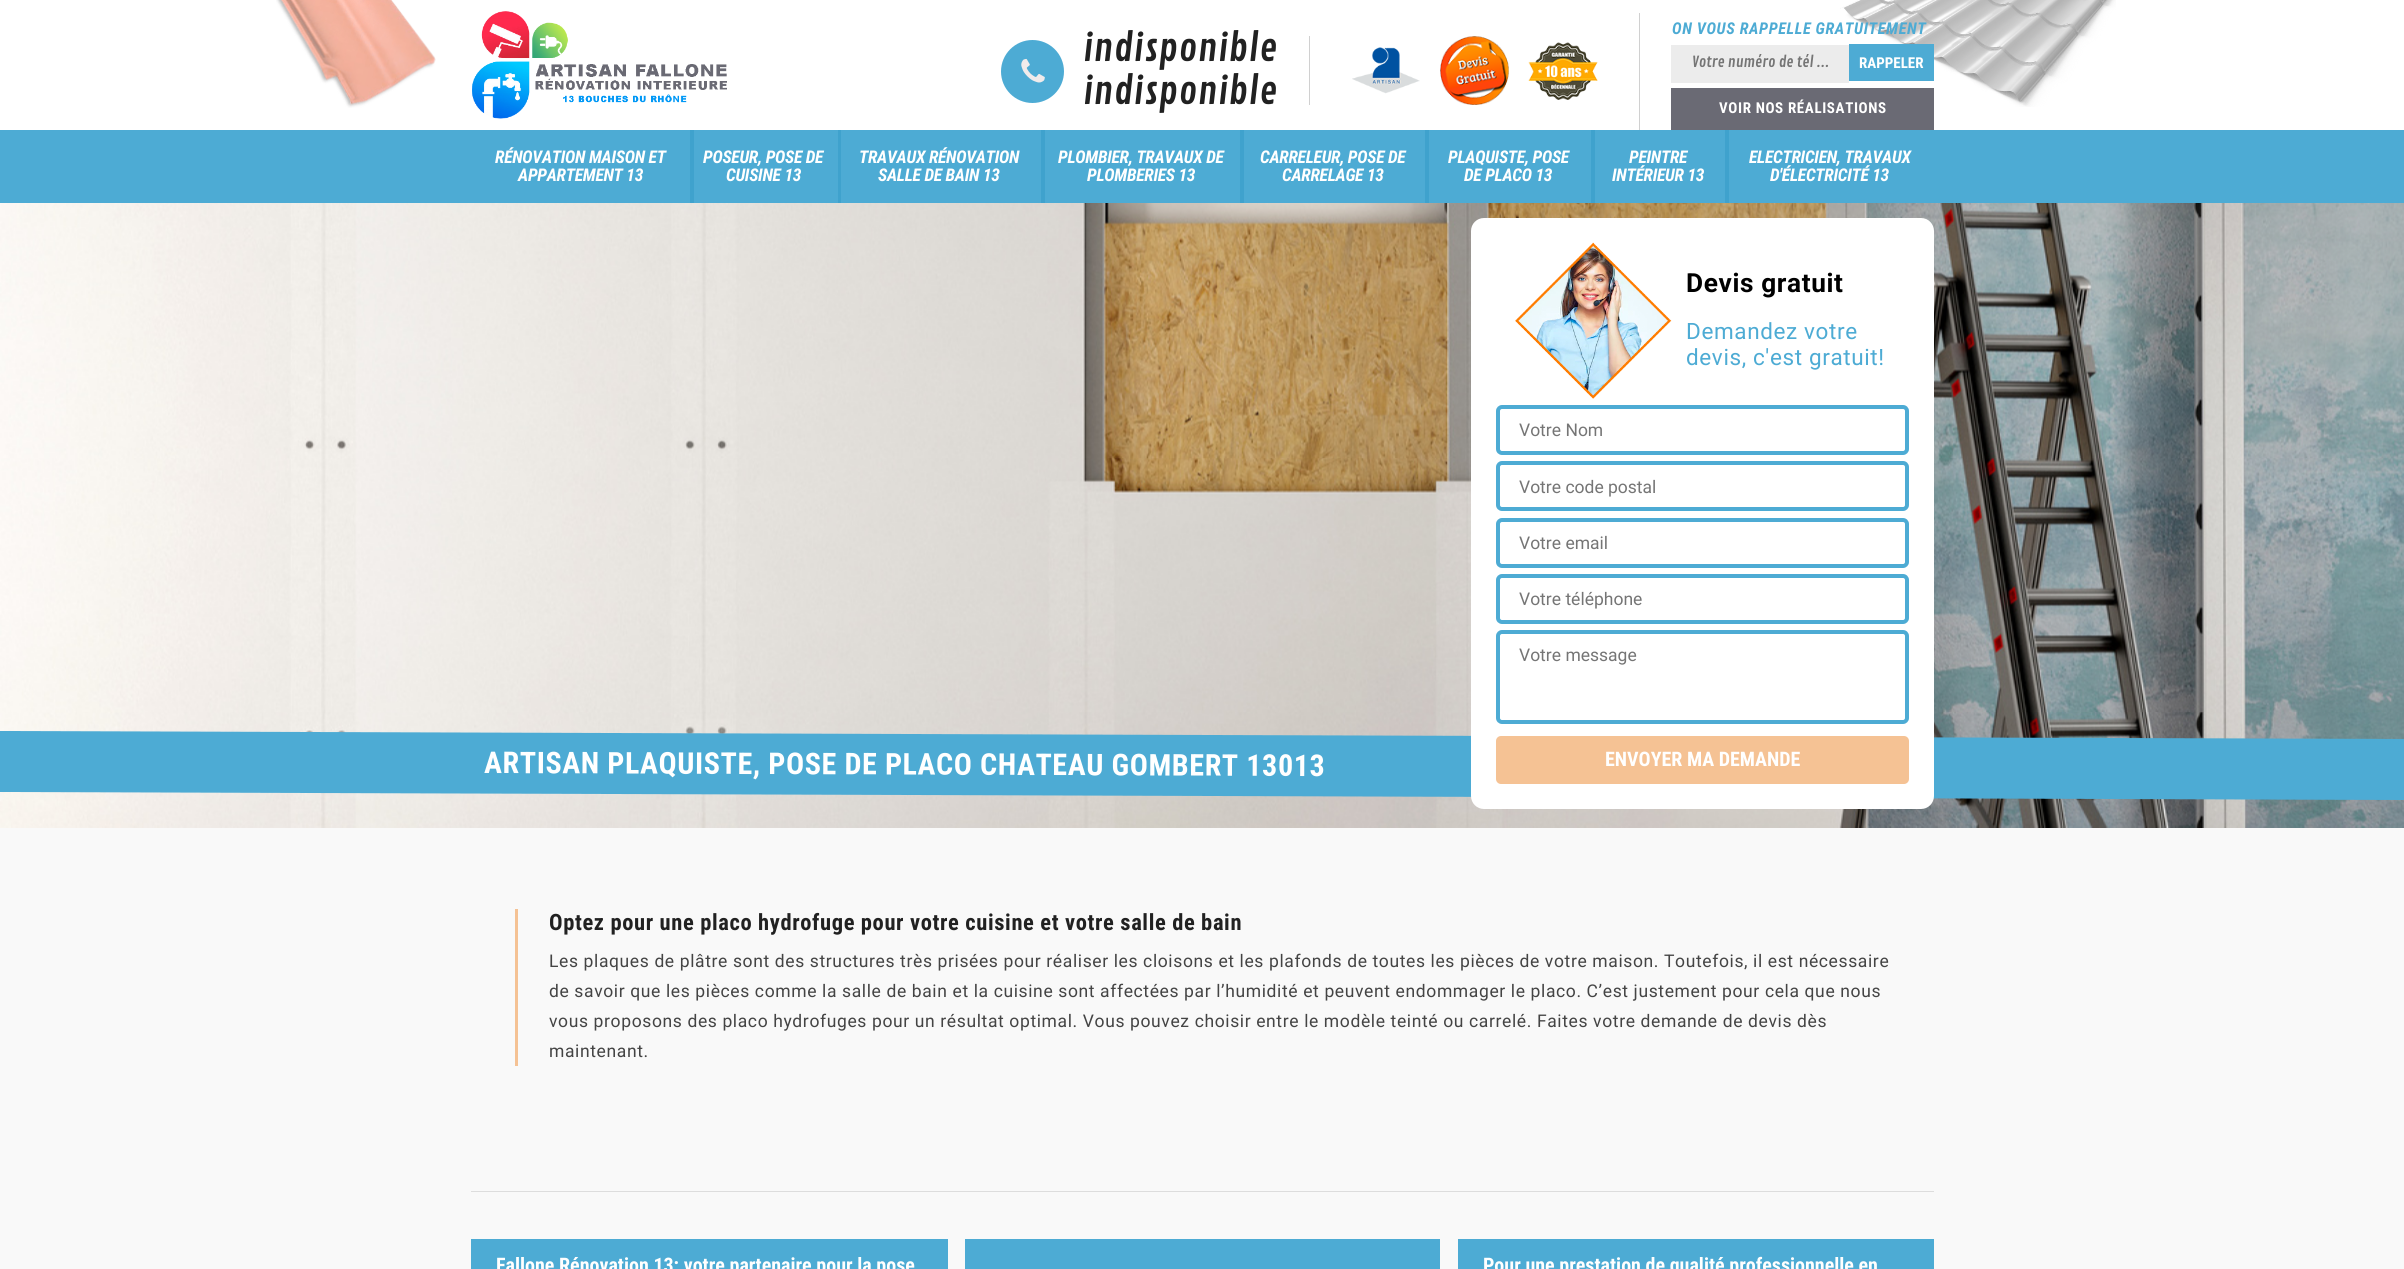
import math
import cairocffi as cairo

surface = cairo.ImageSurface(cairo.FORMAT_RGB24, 2404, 1269)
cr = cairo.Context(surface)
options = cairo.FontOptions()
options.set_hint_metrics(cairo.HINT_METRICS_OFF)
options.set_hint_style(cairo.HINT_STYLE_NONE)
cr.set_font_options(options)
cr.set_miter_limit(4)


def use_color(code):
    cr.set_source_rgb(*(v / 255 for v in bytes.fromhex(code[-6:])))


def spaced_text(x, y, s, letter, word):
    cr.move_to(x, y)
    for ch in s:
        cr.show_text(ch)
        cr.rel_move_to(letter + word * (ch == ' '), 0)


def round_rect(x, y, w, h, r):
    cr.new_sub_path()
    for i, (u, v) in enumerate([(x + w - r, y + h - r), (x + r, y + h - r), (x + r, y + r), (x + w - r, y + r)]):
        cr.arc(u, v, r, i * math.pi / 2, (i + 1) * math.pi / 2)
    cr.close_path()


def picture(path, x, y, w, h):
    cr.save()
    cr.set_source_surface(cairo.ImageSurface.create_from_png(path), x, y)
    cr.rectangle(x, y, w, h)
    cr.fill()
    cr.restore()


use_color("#ffffff")
cr.paint()
picture("img1.png", 276, 0, 160, 108)
picture("img2.png", 472, 11, 255, 108)
use_color("#4dabd4")
cr.arc(1032.5, 71.5, 31.5, 0, 2 * math.pi)
cr.fill()
picture("img3.png", 1021, 58, 24, 25)
cr.select_font_face("Contrail One")
cr.set_font_size(37.5)
use_color("#212121")
spaced_text(1083, 61, "indisponible", 0.62, 0)
spaced_text(1083, 104, "indisponible", 0.62, 0)
use_color("#d0d0d0")
cr.rectangle(1309, 36, 1, 69)
cr.fill()
picture("img4.png", 1352, 47, 68, 47)
picture("img5.png", 1440, 36, 69, 69)
picture("img6.png", 1528, 42, 70, 58)
cr.rectangle(1639, 13, 1, 117)
cr.fill()
picture("img7.png", 1840, 0, 276, 107)
cr.select_font_face("Roboto Condensed", cairo.FONT_SLANT_ITALIC, cairo.FONT_WEIGHT_BOLD)
cr.set_font_size(16.25)
use_color("#4dabd4")
spaced_text(1672, 34, "ON VOUS RAPPELLE GRATUITEMENT", 0.62, 0)
use_color("#ececec")
cr.rectangle(1671, 45, 178, 38)
cr.fill()
cr.save()
cr.rectangle(1691, 54, 138, 19)
cr.clip()
cr.select_font_face("Contrail One")
cr.set_font_size(15)
use_color("#757575")
cr.move_to(1692, 67)
cr.show_text("Votre numéro de tél ...")
cr.restore()
use_color("#4dabd4")
cr.rectangle(1849, 44, 85, 37)
cr.fill()
cr.select_font_face("Roboto Condensed", cairo.FONT_SLANT_NORMAL, cairo.FONT_WEIGHT_BOLD)
cr.set_font_size(15)
use_color("#ffffff")
cr.move_to(1859, 68)
cr.show_text("RAPPELER")
use_color("#6a6a74")
cr.rectangle(1671, 88, 263, 42)
cr.fill()
use_color("#ffffff")
spaced_text(1719, 113, "VOIR NOS RÉALISATIONS", 0.62, 0)
use_color("#4dabd4")
cr.rectangle(0, 130, 2404, 73)
cr.fill()
cr.select_font_face("Roboto Condensed", cairo.FONT_SLANT_ITALIC, cairo.FONT_WEIGHT_BOLD)
cr.set_font_size(17.5)
use_color("#ffffff")
spaced_text(495, 163, "RÉNOVATION MAISON ET", -0.25, 0)
spaced_text(518, 181, "APPARTEMENT 13", -0.25, 0)
use_color("#3fa2cd")
cr.rectangle(690, 130, 4, 73)
cr.fill()
use_color("#ffffff")
spaced_text(703, 163, "POSEUR, POSE DE", -0.25, 0)
spaced_text(726, 181, "CUISINE 13", -0.25, 0)
use_color("#3fa2cd")
cr.rectangle(838, 130, 3, 73)
cr.fill()
use_color("#ffffff")
spaced_text(859, 163, "TRAVAUX RÉNOVATION", -0.25, 0)
spaced_text(878, 181, "SALLE DE BAIN 13", -0.25, 0)
use_color("#3fa2cd")
cr.rectangle(1041, 130, 4, 73)
cr.fill()
use_color("#ffffff")
spaced_text(1058, 163, "PLOMBIER, TRAVAUX DE", -0.25, 0)
spaced_text(1087, 181, "PLOMBERIES 13", -0.25, 0)
use_color("#3fa2cd")
cr.rectangle(1240, 130, 4, 73)
cr.fill()
use_color("#ffffff")
spaced_text(1260, 163, "CARRELEUR, POSE DE", -0.25, 0)
spaced_text(1282, 181, "CARRELAGE 13", -0.25, 0)
use_color("#3fa2cd")
cr.rectangle(1425, 130, 4, 73)
cr.fill()
use_color("#ffffff")
spaced_text(1448, 163, "PLAQUISTE, POSE", -0.25, 0)
spaced_text(1464, 181, "DE PLACO 13", -0.25, 0)
use_color("#3fa2cd")
cr.rectangle(1591, 130, 4, 73)
cr.fill()
use_color("#ffffff")
spaced_text(1629, 163, "PEINTRE", -0.25, 0)
spaced_text(1612, 181, "INTÉRIEUR 13", -0.25, 0)
use_color("#3fa2cd")
cr.rectangle(1725, 130, 4, 73)
cr.fill()
use_color("#ffffff")
spaced_text(1749, 163, "ELECTRICIEN, TRAVAUX", -0.25, 0)
spaced_text(1770, 181, "D'ÉLECTRICITÉ 13", -0.25, 0)
picture("img8.png", 0, 203, 2404, 625)
use_color("#4dabd4")
cr.new_path()
cr.move_to(0, 731)
cr.line_to(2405, 739)
cr.line_to(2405, 800)
cr.line_to(0, 792)
cr.close_path()
cr.fill()
cr.select_font_face("Roboto Condensed", cairo.FONT_SLANT_NORMAL, cairo.FONT_WEIGHT_BOLD)
cr.set_font_size(30)
use_color("#ffffff")
cr.save()
cr.translate(484, 773)
cr.rotate(0.2 * math.pi / 180)
spaced_text(0, 0, "ARTISAN PLAQUISTE, POSE DE PLACO CHATEAU GOMBERT 13013", 0.63, 0)
cr.restore()
round_rect(1471, 218, 463, 591, 13)
cr.fill()
picture("img9.png", 1515, 242, 157, 157)
cr.select_font_face("Roboto", cairo.FONT_SLANT_NORMAL, cairo.FONT_WEIGHT_BOLD)
cr.set_font_size(26.25)
use_color("#000000")
spaced_text(1686, 292, "Devis gratuit", 0.62, 0)
cr.select_font_face("Roboto")
cr.set_font_size(22.5)
use_color("#4dabd4")
spaced_text(1686, 339, "Demandez votre", 0.62, 0)
spaced_text(1686, 365, "devis, c'est gratuit!", 0.62, 0)
round_rect(1498, 407, 409, 46, 4)
cr.set_line_width(4)
cr.stroke()
cr.set_font_size(17.5)
use_color("#757575")
cr.move_to(1519, 436)
cr.show_text("Votre Nom")
round_rect(1498, 463, 409, 46, 4)
use_color("#4dabd4")
cr.stroke()
use_color("#757575")
cr.move_to(1519, 493)
cr.show_text("Votre code postal")
round_rect(1498, 520, 409, 46, 4)
use_color("#4dabd4")
cr.stroke()
use_color("#757575")
cr.move_to(1519, 549)
cr.show_text("Votre email")
round_rect(1498, 576, 409, 46, 4)
use_color("#4dabd4")
cr.stroke()
use_color("#757575")
cr.move_to(1519, 605)
cr.show_text("Votre téléphone")
round_rect(1498, 632, 409, 90, 4)
use_color("#4dabd4")
cr.stroke()
use_color("#757575")
cr.move_to(1519, 661)
cr.show_text("Votre message")
use_color("#f5c294")
round_rect(1496, 736, 413, 48, 5)
cr.fill()
cr.select_font_face("Roboto Condensed", cairo.FONT_SLANT_NORMAL, cairo.FONT_WEIGHT_BOLD)
cr.set_font_size(20)
use_color("#ffffff")
cr.move_to(1605, 766)
cr.show_text("ENVOYER MA DEMANDE")
use_color("#f9f9f9")
cr.rectangle(0, 828, 2404, 441)
cr.fill()
use_color("#f5c294")
cr.rectangle(515, 909, 3, 157)
cr.fill()
cr.set_font_size(22.5)
use_color("#212121")
spaced_text(549, 930, "Optez pour une placo hydrofuge pour votre cuisine et votre salle de bain", 0.62, 0)
cr.select_font_face("Roboto")
cr.set_font_size(17.5)
use_color("#444444")
spaced_text(549, 967, "Les plaques de plâtre sont des structures très prisées pour réaliser les cloisons et les plafonds de toutes les pièces de votre maison. Toutefois, il est nécessaire", 0.62, 0)
spaced_text(549, 997, "de savoir que les pièces comme la salle de bain et la cuisine sont affectées par l’humidité et peuvent endommager le placo. C’est justement pour cela que nous", 0.62, 0)
spaced_text(549, 1027, "vous proposons des placo hydrofuges pour un résultat optimal. Vous pouvez choisir entre le modèle teinté ou carrelé. Faites votre demande de devis dès", 0.62, 0)
spaced_text(549, 1057, "maintenant.", 0.62, 0)
use_color("#dddddd")
cr.rectangle(471, 1191, 1463, 1)
cr.fill()
use_color("#4dabd4")
cr.rectangle(471, 1239, 477, 30)
cr.fill()
cr.select_font_face("Roboto Condensed", cairo.FONT_SLANT_NORMAL, cairo.FONT_WEIGHT_BOLD)
cr.set_font_size(20)
use_color("#ffffff")
cr.move_to(496, 1272)
cr.show_text("Fallone Rénovation 13: votre partenaire pour la pose")
use_color("#4dabd4")
cr.rectangle(965, 1239, 475, 30)
cr.fill()
cr.rectangle(1458, 1239, 476, 30)
cr.fill()
use_color("#ffffff")
cr.move_to(1483, 1272)
cr.show_text("Pour une prestation de qualité professionnelle en")
surface.write_to_png("result.png")
